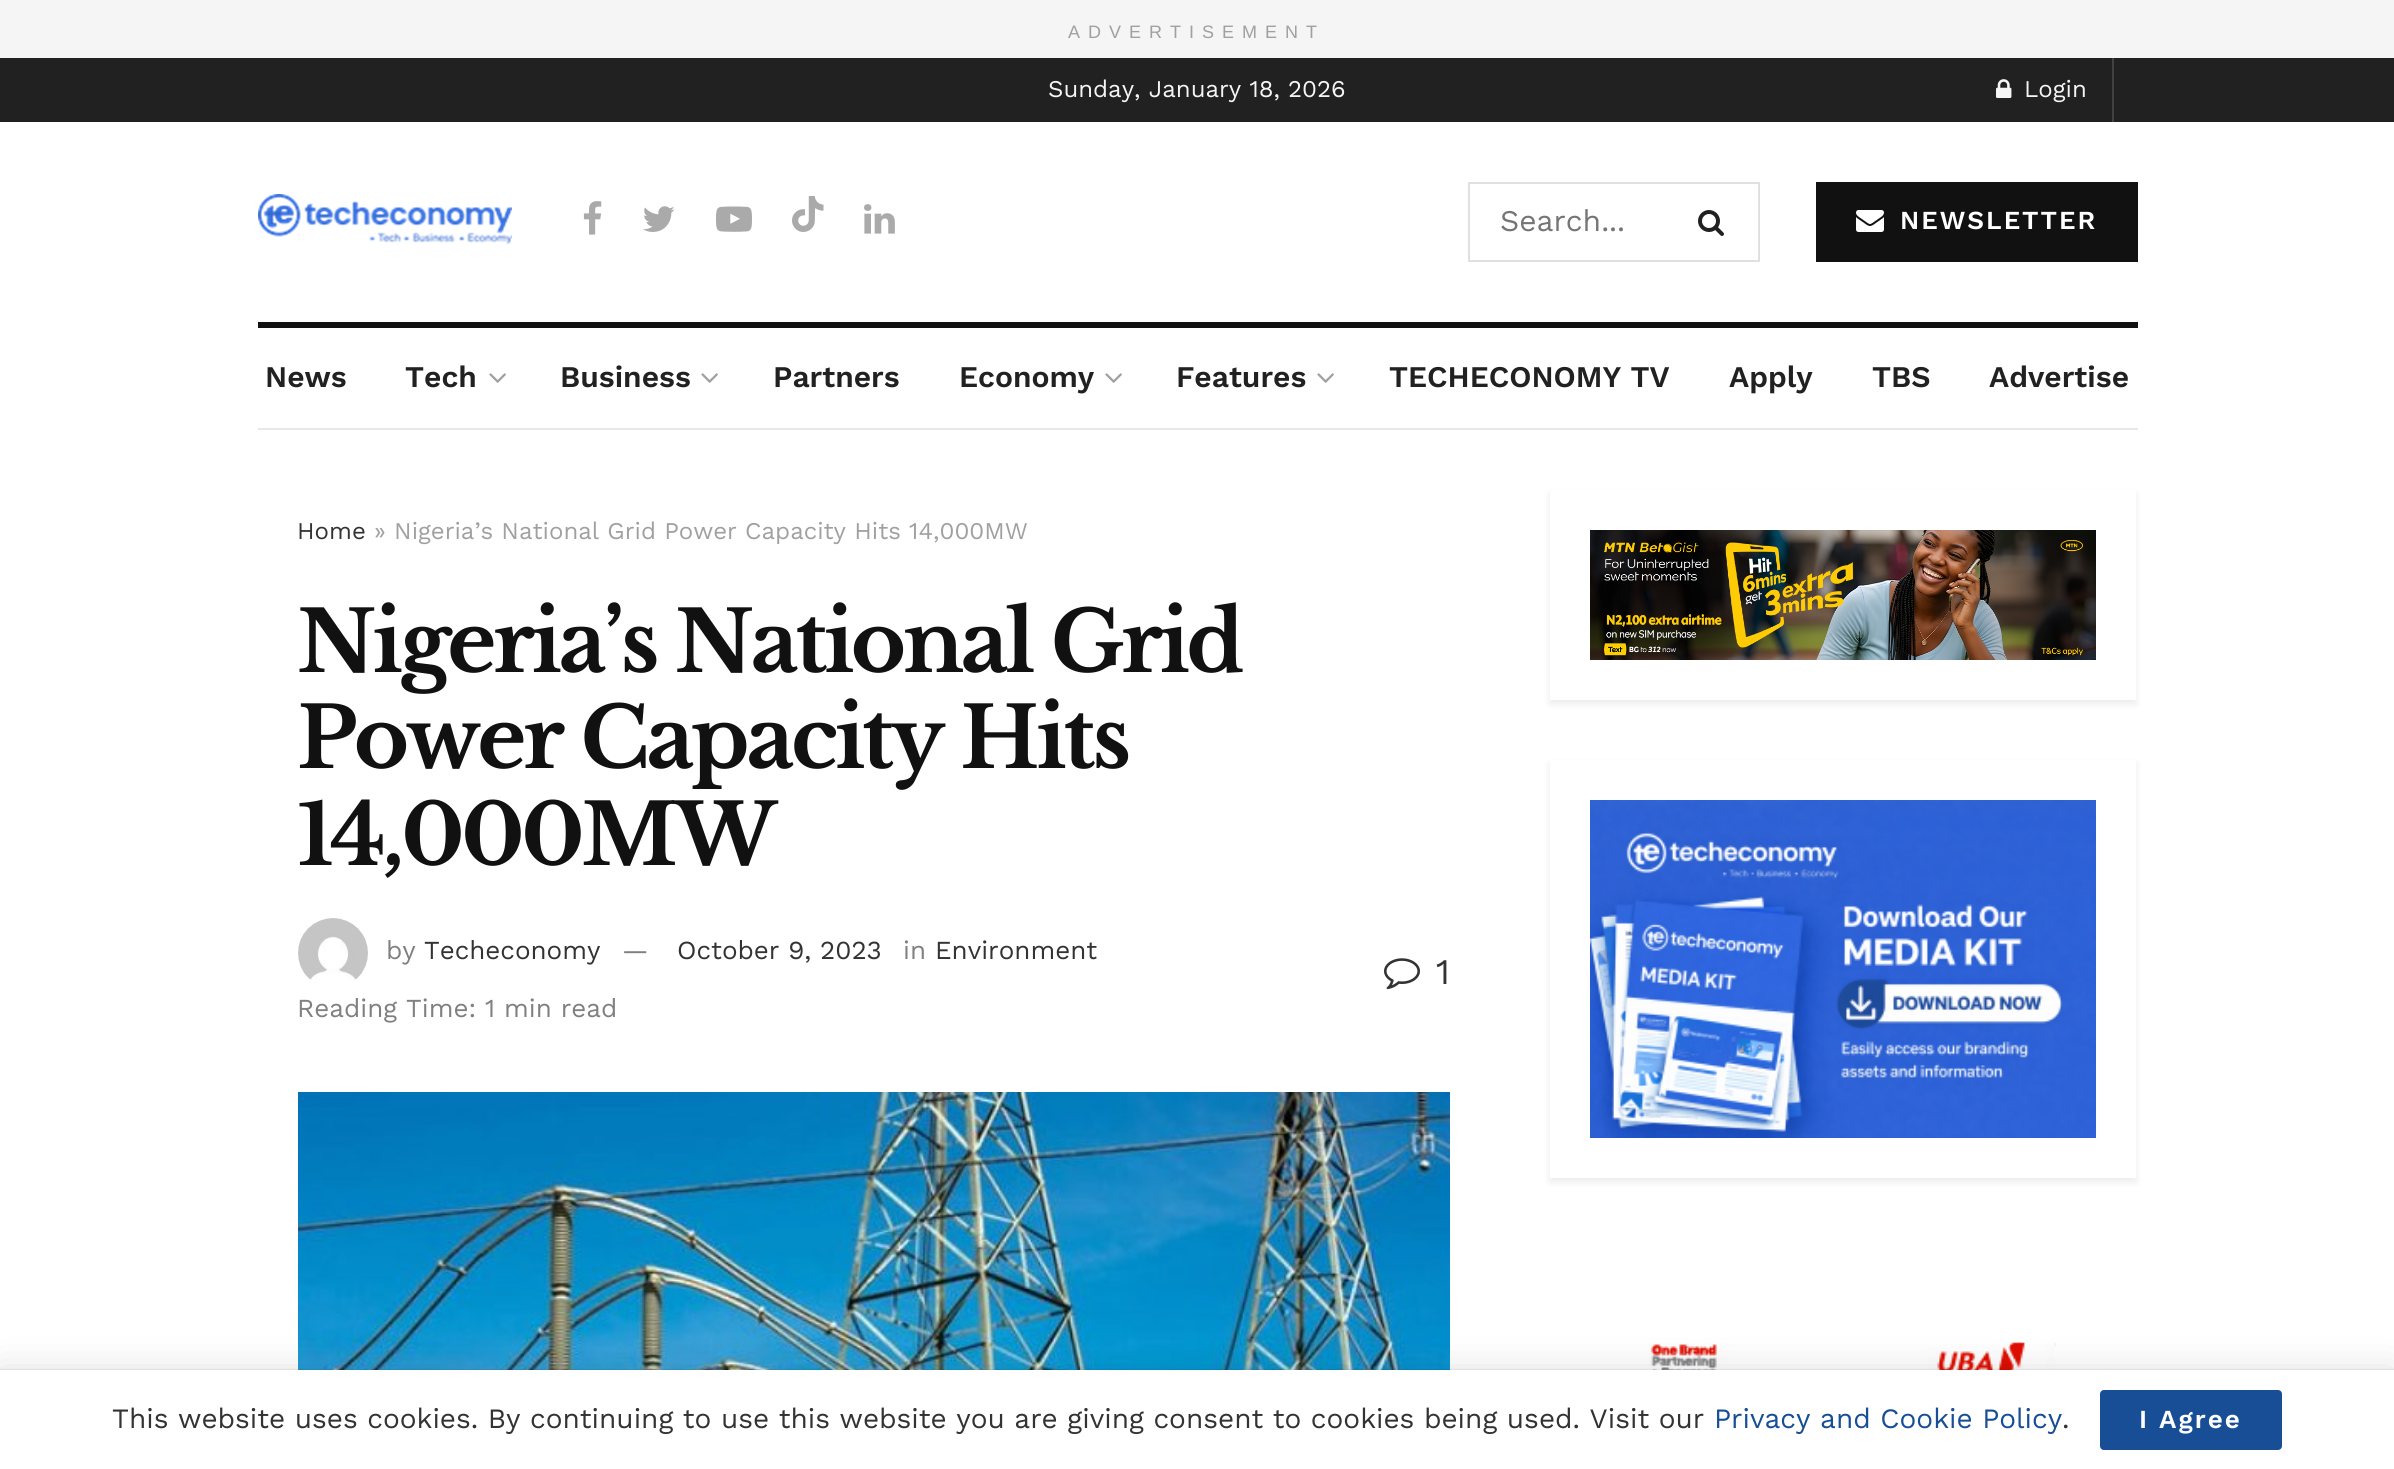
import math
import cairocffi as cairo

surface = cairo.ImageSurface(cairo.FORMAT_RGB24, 2394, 1469)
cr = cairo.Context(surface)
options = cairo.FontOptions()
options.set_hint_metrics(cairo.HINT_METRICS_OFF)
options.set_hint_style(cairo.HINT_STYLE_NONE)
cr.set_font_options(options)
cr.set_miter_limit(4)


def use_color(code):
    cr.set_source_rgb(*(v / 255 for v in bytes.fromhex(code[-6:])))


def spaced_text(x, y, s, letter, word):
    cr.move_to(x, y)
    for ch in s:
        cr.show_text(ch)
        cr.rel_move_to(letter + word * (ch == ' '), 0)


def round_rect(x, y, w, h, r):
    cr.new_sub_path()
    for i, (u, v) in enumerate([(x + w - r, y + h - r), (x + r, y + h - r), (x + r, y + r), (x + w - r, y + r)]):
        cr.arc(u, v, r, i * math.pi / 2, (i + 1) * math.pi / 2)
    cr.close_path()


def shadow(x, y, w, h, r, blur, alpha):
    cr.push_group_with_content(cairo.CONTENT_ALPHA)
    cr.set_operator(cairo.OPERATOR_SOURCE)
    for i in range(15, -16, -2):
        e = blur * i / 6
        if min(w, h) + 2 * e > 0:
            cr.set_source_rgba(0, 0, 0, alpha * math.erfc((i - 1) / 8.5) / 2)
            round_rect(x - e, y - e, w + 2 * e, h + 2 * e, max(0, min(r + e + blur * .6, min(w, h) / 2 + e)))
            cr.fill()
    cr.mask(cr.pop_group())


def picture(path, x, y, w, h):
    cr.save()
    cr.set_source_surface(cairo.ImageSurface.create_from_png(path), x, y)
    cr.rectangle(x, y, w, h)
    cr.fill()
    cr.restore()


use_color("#ffffff")
cr.paint()
use_color("#f5f5f5")
cr.rectangle(0, 0, 2394, 58)
cr.fill()
cr.select_font_face("Liberation Sans")
cr.set_font_size(18)
use_color("#a0a0a0")
spaced_text(1068, 38, "ADVERTISEMENT", 8, 0)
use_color("#212121")
cr.rectangle(0, 58, 2394, 64)
cr.fill()
cr.select_font_face("Work Sans")
cr.set_font_size(24)
use_color("#f5f5f5")
cr.move_to(1048, 97)
cr.show_text("Sunday, January 18, 2026")
use_color("#424242")
cr.rectangle(2112, 58, 2, 64)
cr.fill()
picture("img1.png", 1996, 79, 16, 19)
use_color("#f5f5f5")
cr.move_to(2024, 97)
cr.show_text("Login")
picture("img2.png", 258, 194, 254, 51)
picture("img3.png", 583, 201, 19, 34)
picture("img4.png", 643, 206, 32, 26)
picture("img5.png", 716, 206, 36, 26)
picture("img6.png", 792, 196, 32, 36)
picture("img7.png", 864, 204, 31, 30)
cr.rectangle(1469, 183, 290, 78)
use_color("#e0e0e0")
cr.stroke()
cr.set_font_size(30)
use_color("#757575")
cr.move_to(1500, 231)
cr.show_text("Search...")
picture("img8.png", 1698, 210, 26, 26)
use_color("#111111")
cr.rectangle(1816, 182, 322, 80)
cr.fill()
picture("img9.png", 1856, 210, 28, 22)
cr.select_font_face("Work Sans SemiBold")
cr.set_font_size(26)
use_color("#ffffff")
spaced_text(1900, 229, "NEWSLETTER", 2, 0)
use_color("#111111")
cr.rectangle(258, 322, 1880, 6)
cr.fill()
use_color("#e8e8e8")
cr.rectangle(258, 428, 1880, 2)
cr.fill()
cr.set_font_size(30)
use_color("#212121")
cr.move_to(265, 387)
cr.show_text("News")
cr.move_to(405, 387)
cr.show_text("Tech")
picture("img10.png", 489, 373, 17, 10)
cr.move_to(560, 387)
cr.show_text("Business")
picture("img10.png", 701, 373, 17, 10)
cr.move_to(773, 387)
cr.show_text("Partners")
cr.move_to(959, 387)
cr.show_text("Economy")
picture("img10.png", 1105, 373, 17, 10)
cr.move_to(1176, 387)
cr.show_text("Features")
picture("img10.png", 1317, 373, 17, 10)
cr.move_to(1389, 387)
cr.show_text("TECHECONOMY TV")
cr.move_to(1729, 387)
cr.show_text("Apply")
cr.move_to(1872, 387)
cr.show_text("TBS")
cr.move_to(1989, 387)
cr.show_text("Advertise")
cr.select_font_face("Work Sans")
cr.set_font_size(24)
use_color("#333333")
cr.move_to(297, 539)
cr.show_text("Home")
use_color("#a0a0a0")
cr.move_to(374, 539)
cr.show_text("» Nigeria’s National Grid Power Capacity Hits 14,000MW")
cr.select_font_face("Libre Baskerville", cairo.FONT_SLANT_NORMAL, cairo.FONT_WEIGHT_BOLD)
cr.set_font_size(84)
use_color("#111111")
spaced_text(297, 672, "Nigeria’s National Grid", -3.4, 0)
spaced_text(297, 768, "Power Capacity Hits", -3.4, 0)
spaced_text(297, 865, "14,000MW", -3.4, 0)
picture("img11.png", 298, 918, 70, 62)
cr.select_font_face("Work Sans")
cr.set_font_size(26)
use_color("#808080")
cr.move_to(386, 959)
cr.show_text("by")
use_color("#333333")
cr.move_to(424, 959)
cr.show_text("Techeconomy")
use_color("#808080")
cr.move_to(622, 959)
cr.show_text("—")
use_color("#333333")
cr.move_to(677, 959)
cr.show_text("October 9, 2023")
use_color("#808080")
cr.move_to(903, 959)
cr.show_text("in")
use_color("#333333")
cr.move_to(935, 959)
cr.show_text("Environment")
use_color("#808080")
cr.move_to(297, 1017)
cr.show_text("Reading Time: 1 min read")
picture("img12.png", 1384, 958, 36, 32)
cr.set_font_size(36)
use_color("#333333")
cr.move_to(1436, 984)
cr.show_text("1")
picture("img13.png", 298, 1092, 1152, 278)
cr.save()
cr.set_fill_rule(cairo.FILL_RULE_EVEN_ODD)
cr.new_path()
cr.move_to(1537, 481)
cr.line_to(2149, 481)
cr.line_to(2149, 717)
cr.line_to(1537, 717)
cr.close_path()
cr.move_to(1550, 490)
cr.line_to(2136, 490)
cr.line_to(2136, 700)
cr.line_to(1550, 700)
cr.close_path()
cr.clip()
use_color("#000000")
shadow(1550, 494, 586, 210, 0, 4, 0.08)
cr.restore()
picture("img14.png", 1590, 530, 506, 130)
cr.save()
cr.set_fill_rule(cairo.FILL_RULE_EVEN_ODD)
cr.new_path()
cr.move_to(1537, 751)
cr.line_to(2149, 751)
cr.line_to(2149, 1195)
cr.line_to(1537, 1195)
cr.close_path()
cr.move_to(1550, 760)
cr.line_to(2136, 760)
cr.line_to(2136, 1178)
cr.line_to(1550, 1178)
cr.close_path()
cr.clip()
use_color("#000000")
shadow(1550, 764, 586, 418, 0, 4, 0.08)
cr.restore()
picture("img15.png", 1590, 800, 506, 338)
picture("img16.png", 1649, 1342, 407, 28)
use_color("#000000")
shadow(0, 1374, 2394, 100, 0, 20, 0.15)
shadow(0, 1370, 2394, 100, 0, 1, 0.2)
use_color("#ffffff")
cr.rectangle(0, 1370, 2394, 99)
cr.fill()
cr.set_font_size(28)
use_color("#333333")
cr.move_to(112, 1428)
cr.show_text("This website uses cookies. By continuing to use this website you are giving consent to cookies being used. Visit our")
use_color("#174e96")
cr.move_to(1714, 1428)
cr.show_text("Privacy and Cookie Policy")
use_color("#333333")
cr.move_to(2062, 1428)
cr.show_text(".")
use_color("#174e96")
round_rect(2100, 1390, 182, 60, 4)
cr.fill()
cr.select_font_face("Work Sans SemiBold")
cr.set_font_size(26)
use_color("#ffffff")
spaced_text(2139, 1428, "I Agree", 2, 0)
surface.write_to_png("result.png")
